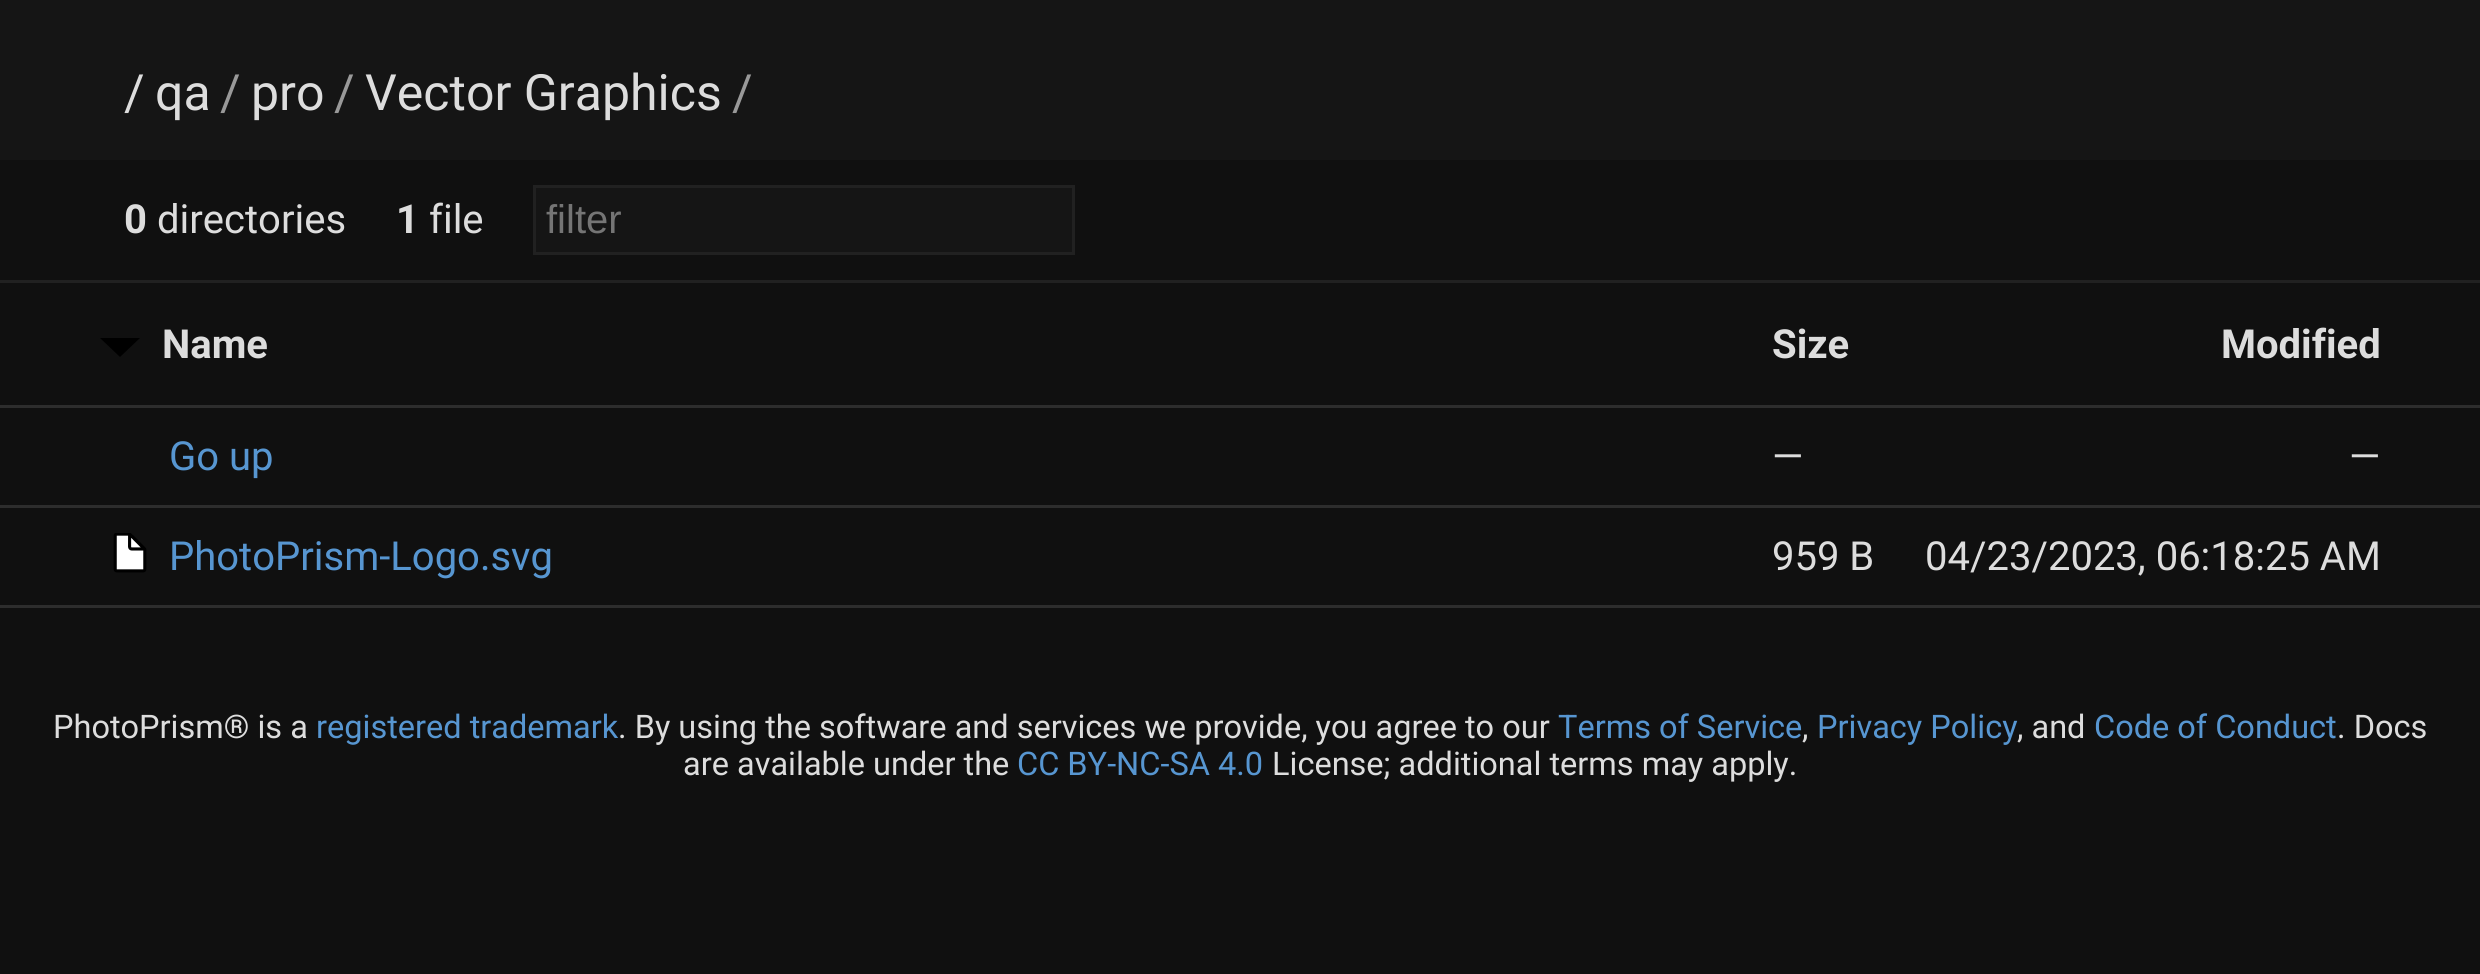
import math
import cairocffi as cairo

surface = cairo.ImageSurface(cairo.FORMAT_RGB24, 2480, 974)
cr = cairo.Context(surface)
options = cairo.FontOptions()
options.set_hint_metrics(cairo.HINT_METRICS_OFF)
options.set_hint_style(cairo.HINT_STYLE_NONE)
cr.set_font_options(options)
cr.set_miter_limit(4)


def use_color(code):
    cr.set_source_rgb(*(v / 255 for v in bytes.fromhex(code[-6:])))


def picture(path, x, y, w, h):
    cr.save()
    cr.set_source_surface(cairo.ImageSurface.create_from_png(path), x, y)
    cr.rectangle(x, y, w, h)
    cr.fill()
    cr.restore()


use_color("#101010")
cr.paint()
use_color("#151515")
cr.rectangle(0, 0, 2480, 160)
cr.fill()
cr.select_font_face("Roboto")
cr.set_font_size(50)
use_color("#dddddd")
cr.move_to(124, 110)
cr.show_text("/")
cr.move_to(155, 110)
cr.show_text("qa")
use_color("#999999")
cr.move_to(220, 110)
cr.show_text("/")
use_color("#dddddd")
cr.move_to(251, 110)
cr.show_text("pro")
use_color("#999999")
cr.move_to(334, 110)
cr.show_text("/")
use_color("#dddddd")
cr.move_to(365, 110)
cr.show_text("Vector Graphics")
use_color("#999999")
cr.move_to(732, 110)
cr.show_text("/")
use_color("#212121")
cr.rectangle(0, 280, 2480, 3)
cr.fill()
cr.select_font_face("Roboto", cairo.FONT_SLANT_NORMAL, cairo.FONT_WEIGHT_BOLD)
cr.set_font_size(40)
use_color("#dddddd")
cr.move_to(124, 233)
cr.show_text("0")
cr.select_font_face("Roboto")
cr.move_to(157, 233)
cr.show_text("directories")
cr.select_font_face("Roboto", cairo.FONT_SLANT_NORMAL, cairo.FONT_WEIGHT_BOLD)
cr.move_to(396, 233)
cr.show_text("1")
cr.select_font_face("Roboto")
cr.move_to(429, 233)
cr.show_text("file")
use_color("#151515")
cr.rectangle(534.5, 186.5, 539, 67)
cr.fill_preserve()
use_color("#212121")
cr.set_line_width(3)
cr.stroke()
cr.select_font_face("Liberation Sans")
use_color("#757575")
cr.move_to(546, 233)
cr.show_text("filter")
use_color("#2d2d2d")
cr.rectangle(0, 405, 2480, 3)
cr.fill()
use_color("#000000")
cr.new_path()
cr.move_to(140, 338)
cr.line_to(100, 338)
cr.line_to(120, 357)
cr.line_to(130, 347.5)
cr.close_path()
cr.fill()
cr.select_font_face("Roboto", cairo.FONT_SLANT_NORMAL, cairo.FONT_WEIGHT_BOLD)
use_color("#dddddd")
cr.move_to(162, 358)
cr.show_text("Name")
cr.move_to(1772, 358)
cr.show_text("Size")
cr.move_to(2221, 358)
cr.show_text("Modified")
use_color("#2d2d2d")
cr.rectangle(0, 505, 2480, 3)
cr.fill()
cr.select_font_face("Roboto")
use_color("#5796d1")
cr.move_to(169, 470)
cr.show_text("Go up")
use_color("#dddddd")
cr.move_to(1772, 470)
cr.show_text("—")
cr.move_to(2349, 470)
cr.show_text("—")
use_color("#2d2d2d")
cr.rectangle(0, 605, 2480, 3)
cr.fill()
picture("img1.png", 113, 533, 34, 40)
use_color("#5796d1")
cr.move_to(169, 570)
cr.show_text("PhotoPrism-Logo.svg")
use_color("#dddddd")
cr.move_to(1772, 570)
cr.show_text("959 B")
cr.move_to(1925, 570)
cr.show_text("04/23/2023, 06:18:25 AM")
cr.set_font_size(32.5)
cr.move_to(53, 738)
cr.show_text("PhotoPrism® is a")
use_color("#5796d1")
cr.move_to(316, 738)
cr.show_text("registered trademark")
use_color("#dddddd")
cr.move_to(618, 738)
cr.show_text(". By using the software and services we provide, you agree to our")
use_color("#5796d1")
cr.move_to(1558, 738)
cr.show_text("Terms of Service")
use_color("#dddddd")
cr.move_to(1802, 738)
cr.show_text(",")
use_color("#5796d1")
cr.move_to(1817, 738)
cr.show_text("Privacy Policy")
use_color("#dddddd")
cr.move_to(2017, 738)
cr.show_text(", and")
use_color("#5796d1")
cr.move_to(2094, 738)
cr.show_text("Code of Conduct")
use_color("#dddddd")
cr.move_to(2337, 738)
cr.show_text(". Docs")
cr.move_to(683, 775)
cr.show_text("are available under the")
use_color("#5796d1")
cr.move_to(1017, 775)
cr.show_text("CC BY-NC-SA 4.0")
use_color("#dddddd")
cr.move_to(1272, 775)
cr.show_text("License; additional terms may apply.")
surface.write_to_png("result.png")
